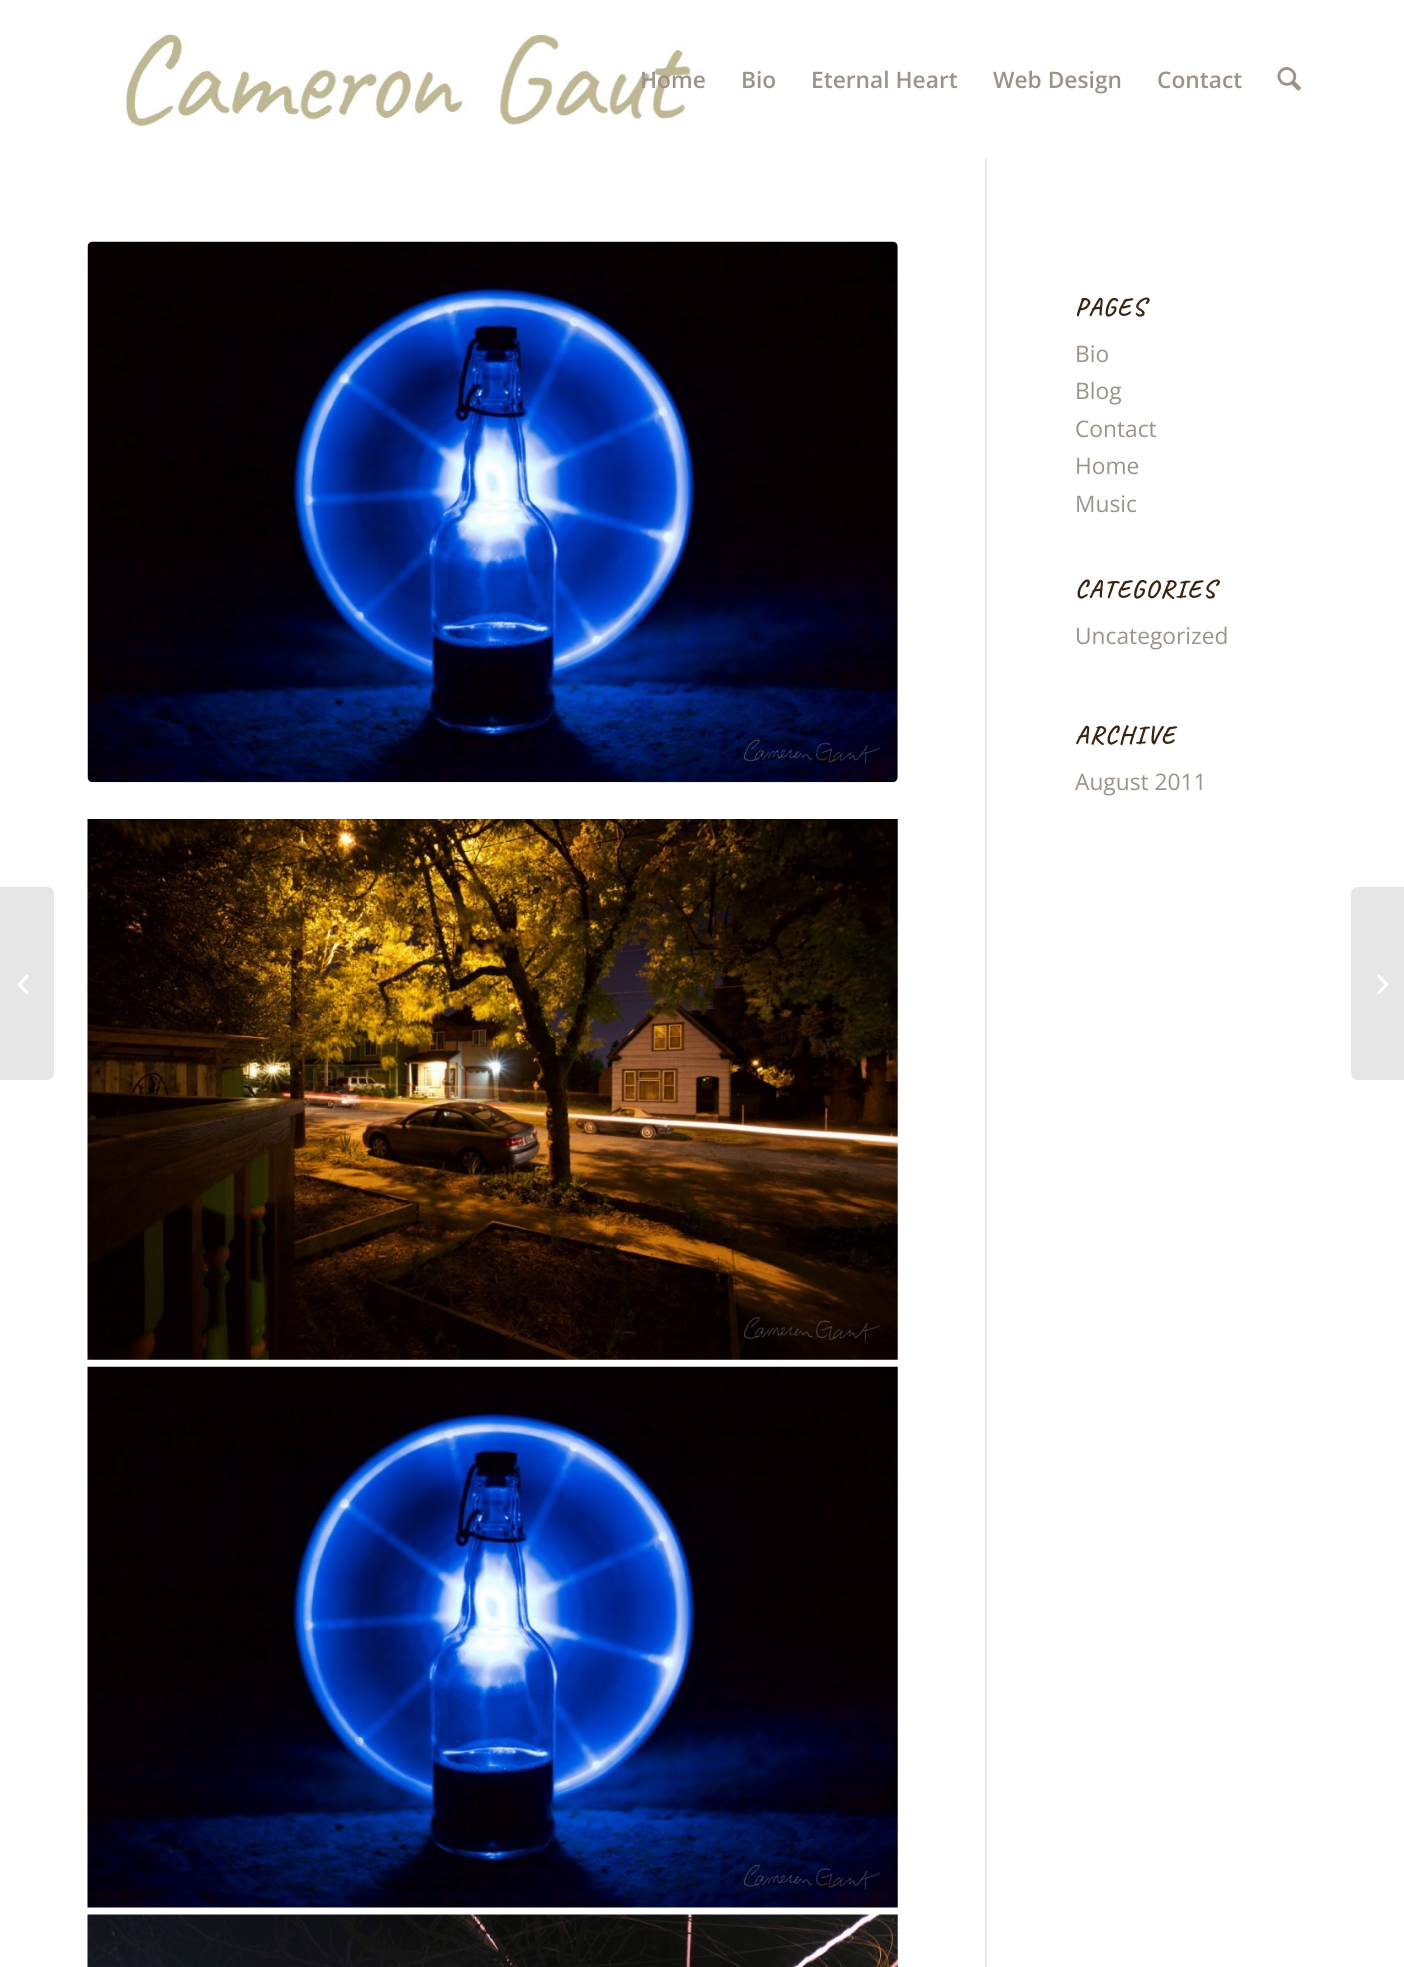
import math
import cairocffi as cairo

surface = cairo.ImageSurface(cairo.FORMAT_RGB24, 1404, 1967)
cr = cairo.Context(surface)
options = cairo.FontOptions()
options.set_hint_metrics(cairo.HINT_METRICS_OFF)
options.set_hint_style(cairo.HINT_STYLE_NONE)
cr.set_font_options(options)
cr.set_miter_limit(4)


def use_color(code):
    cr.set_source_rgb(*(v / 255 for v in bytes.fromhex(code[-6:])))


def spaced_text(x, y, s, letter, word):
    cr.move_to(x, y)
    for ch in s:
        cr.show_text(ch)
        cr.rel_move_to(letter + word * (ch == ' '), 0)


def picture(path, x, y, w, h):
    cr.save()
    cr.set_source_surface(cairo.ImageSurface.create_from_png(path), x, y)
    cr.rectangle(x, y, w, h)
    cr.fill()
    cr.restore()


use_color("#ffffff")
cr.paint()
picture("img1.png", 122, 33, 569, 93)
cr.select_font_face("Open Sans SemiBold")
cr.set_font_size(22.75)
use_color("#9c9288")
cr.move_to(640, 88)
cr.show_text("Home")
cr.move_to(741, 88)
cr.show_text("Bio")
cr.move_to(811, 88)
cr.show_text("Eternal Heart")
cr.move_to(993, 88)
cr.show_text("Web Design")
cr.move_to(1157, 88)
cr.show_text("Contact")
picture("img2.png", 1277, 67, 24, 24)
use_color("#ebe8e2")
cr.rectangle(985, 154, 2, 1813)
cr.fill()
use_color("#ffffff")
cr.rectangle(985, 154, 2, 4)
cr.fill()
picture("img3.png", 87, 241, 811, 542)
picture("img4.png", 87, 819, 811, 541)
picture("img5.png", 87, 1366, 811, 542)
picture("img6.png", 87, 1914, 811, 53)
cr.select_font_face("Caveat", cairo.FONT_SLANT_NORMAL, cairo.FONT_WEIGHT_BOLD)
cr.set_font_size(25)
use_color("#382410")
spaced_text(1075, 315, "PAGES", 1.75, 0)
cr.select_font_face("Open Sans")
cr.set_font_size(22.75)
use_color("#9c9288")
cr.move_to(1075, 362)
cr.show_text("Bio")
cr.move_to(1075, 399)
cr.show_text("Blog")
cr.move_to(1075, 437)
cr.show_text("Contact")
cr.move_to(1075, 474)
cr.show_text("Home")
cr.move_to(1075, 512)
cr.show_text("Music")
cr.select_font_face("Caveat", cairo.FONT_SLANT_NORMAL, cairo.FONT_WEIGHT_BOLD)
cr.set_font_size(25)
use_color("#382410")
spaced_text(1075, 597, "CATEGORIES", 1.75, 0)
cr.select_font_face("Open Sans")
cr.set_font_size(22.75)
use_color("#9c9288")
cr.move_to(1075, 644)
cr.show_text("Uncategorized")
cr.select_font_face("Caveat", cairo.FONT_SLANT_NORMAL, cairo.FONT_WEIGHT_BOLD)
cr.set_font_size(25)
use_color("#382410")
spaced_text(1075, 743, "ARCHIVE", 1.75, 0)
cr.select_font_face("Open Sans")
cr.set_font_size(22.75)
use_color("#9c9288")
cr.move_to(1075, 790)
cr.show_text("August 2011")
use_color("#e6e6e6")
cr.new_path()
cr.move_to(0, 887)
cr.line_to(47, 887)
cr.curve_to(51, 887, 54, 890, 54, 894)
cr.line_to(54, 1073)
cr.curve_to(54, 1077, 51, 1080, 47, 1080)
cr.line_to(0, 1080)
cr.close_path()
cr.fill()
picture("img7.png", 17, 975, 12, 19)
cr.new_path()
cr.move_to(1358, 887)
cr.line_to(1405, 887)
cr.line_to(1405, 1080)
cr.line_to(1358, 1080)
cr.curve_to(1354, 1080, 1351, 1077, 1351, 1073)
cr.line_to(1351, 894)
cr.curve_to(1351, 890, 1354, 887, 1358, 887)
cr.close_path()
cr.fill()
picture("img8.png", 1377, 975, 12, 19)
surface.write_to_png("result.png")
